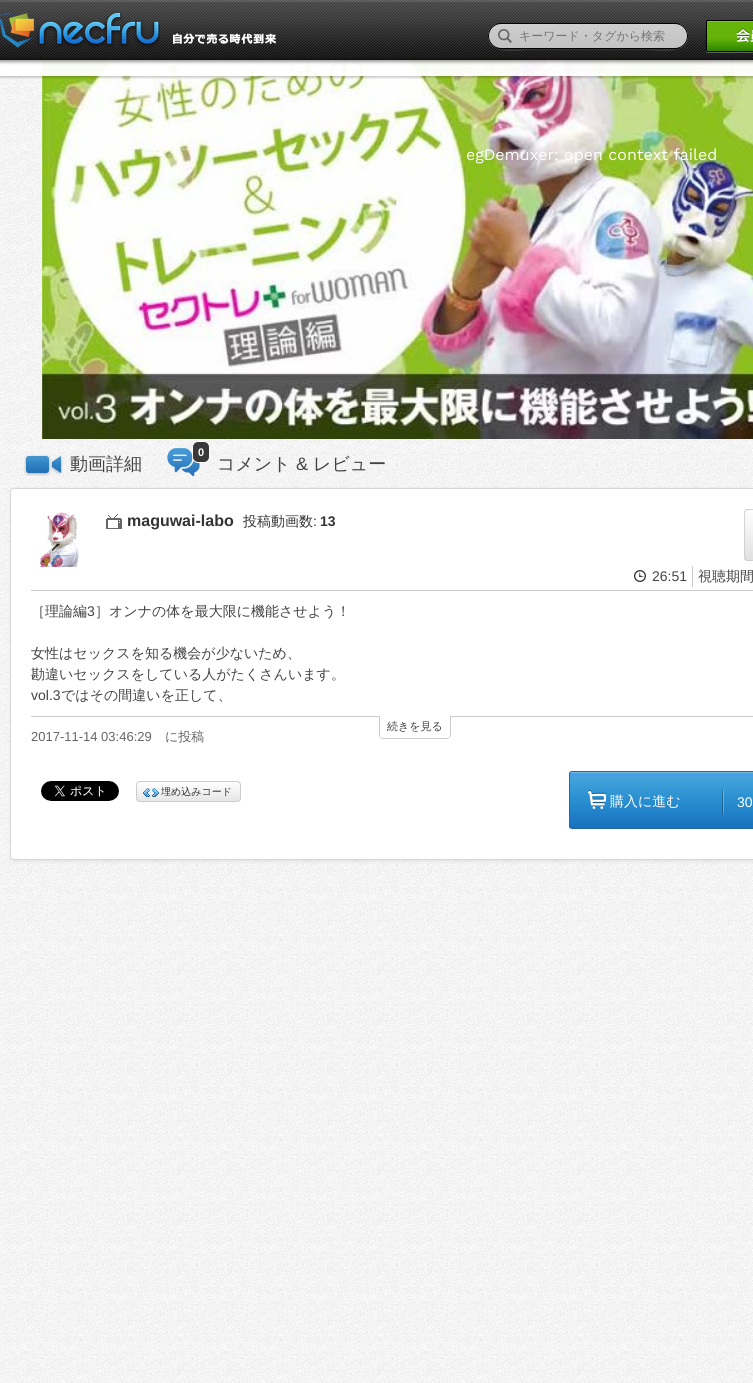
import math
import cairocffi as cairo

surface = cairo.ImageSurface(cairo.FORMAT_RGB24, 753, 1383)
cr = cairo.Context(surface)
options = cairo.FontOptions()
options.set_hint_metrics(cairo.HINT_METRICS_OFF)
options.set_hint_style(cairo.HINT_STYLE_NONE)
cr.set_font_options(options)
cr.set_miter_limit(4)


def use_color(code):
    cr.set_source_rgb(*(v / 255 for v in bytes.fromhex(code[-6:])))


def round_rect(x, y, w, h, r):
    cr.new_sub_path()
    for i, (u, v) in enumerate([(x + w - r, y + h - r), (x + r, y + h - r), (x + r, y + r), (x + w - r, y + r)]):
        cr.arc(u, v, r, i * math.pi / 2, (i + 1) * math.pi / 2)
    cr.close_path()


def shadow(x, y, w, h, r, blur, alpha):
    cr.push_group_with_content(cairo.CONTENT_ALPHA)
    cr.set_operator(cairo.OPERATOR_SOURCE)
    for i in range(15, -16, -2):
        e = blur * i / 6
        if min(w, h) + 2 * e > 0:
            cr.set_source_rgba(0, 0, 0, alpha * math.erfc((i - 1) / 8.5) / 2)
            round_rect(x - e, y - e, w + 2 * e, h + 2 * e, max(0, min(r + e + blur * .6, min(w, h) / 2 + e)))
            cr.fill()
    cr.mask(cr.pop_group())


def picture(path, x, y, w, h):
    cr.save()
    cr.set_source_surface(cairo.ImageSurface.create_from_png(path), x, y)
    cr.rectangle(x, y, w, h)
    cr.fill()
    cr.restore()


use_color("#ffffff")
cr.paint()
picture("img6.png", 0, 60, 753, 1323)
picture("img7.png", 42, 60, 711, 379)
picture("img5.png", 0, 60, 753, 19)
picture("img1.png", 0, 0, 753, 65)
picture("img2.png", 0, 12, 276, 36)
cr.set_source_rgba(1, 1, 1, 0.1)
cr.new_path()
cr.move_to(488, 36)
cr.curve_to(487, 57, 522, 50, 530, 50)
cr.line_to(646, 50)
cr.curve_to(654, 50, 689, 57, 688, 36)
cr.curve_to(688, 43, 682, 49, 675, 49)
cr.line_to(501, 49)
cr.curve_to(494, 49, 488, 43, 488, 36)
cr.close_path()
cr.fill()
cr.save()
round_rect(488, 23, 200, 26, 13)
cr.clip()
gradient = cairo.LinearGradient(489, 48, 489, 24)
gradient.add_color_stop_rgba(0, 0.761, 0.761, 0.761, 1)
gradient.add_color_stop_rgba(1, 0.808, 0.808, 0.808, 1)
cr.set_source(gradient)
cr.rectangle(488, 24, 200, 24)
cr.fill()
cr.restore()
round_rect(488.5, 23.5, 199, 25, 12.5)
use_color("#000000")
cr.set_line_width(1)
cr.stroke()
picture("img3.png", 498, 29, 14, 14)
cr.select_font_face("WenQuanYi Zen Hei Medium")
cr.set_font_size(12)
use_color("#757575")
cr.move_to(519, 40)
cr.show_text("キーワード・タグから検索")
picture("img4.png", 706, 20, 47, 33)
cr.select_font_face("Work Sans")
cr.set_font_size(16)
use_color("#ffffff")
cr.move_to(466, 160)
cr.show_text("egDemuxer: open context failed")
picture("img8.png", 24, 455, 39, 21)
cr.select_font_face("WenQuanYi Zen Hei Medium")
cr.set_font_size(18)
use_color("#444444")
cr.move_to(70, 470)
cr.show_text("動画詳細")
picture("img9.png", 167, 448, 33, 28)
use_color("#393939")
round_rect(192.5, 441.5, 17, 21, 5.5)
cr.fill_preserve()
use_color("#ffffff")
cr.stroke()
cr.select_font_face("Liberation Sans", cairo.FONT_SLANT_NORMAL, cairo.FONT_WEIGHT_BOLD)
cr.set_font_size(11)
cr.move_to(198, 456)
cr.show_text("0")
cr.select_font_face("WenQuanYi Zen Hei Medium")
cr.set_font_size(18)
use_color("#444444")
cr.move_to(217, 470)
cr.show_text("コメント")
cr.select_font_face("Liberation Sans")
cr.move_to(296, 470)
cr.show_text("&")
cr.select_font_face("WenQuanYi Zen Hei Medium")
cr.move_to(313, 470)
cr.show_text("レビュー")
use_color("#000000")
shadow(11, 489, 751, 372, 4, 1.5, 0.1)
use_color("#ffffff")
round_rect(10.5, 488.5, 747, 371, 3.5)
cr.fill_preserve()
use_color("#d7d7d7")
cr.stroke()
use_color("#cccccc")
cr.rectangle(31, 590, 722, 1)
cr.fill()
picture("img10.png", 40, 512, 39, 55)
picture("img11.png", 106, 514, 16, 15)
cr.select_font_face("Liberation Sans", cairo.FONT_SLANT_NORMAL, cairo.FONT_WEIGHT_BOLD)
cr.set_font_size(16)
use_color("#333333")
cr.move_to(127, 526)
cr.show_text("maguwai-labo")
cr.select_font_face("WenQuanYi Zen Hei Medium")
cr.set_font_size(14)
cr.move_to(243, 526)
cr.show_text("投稿動画数")
cr.select_font_face("Liberation Sans")
cr.move_to(313, 526)
cr.show_text(":")
cr.select_font_face("Liberation Sans", cairo.FONT_SLANT_NORMAL, cairo.FONT_WEIGHT_BOLD)
cr.move_to(320, 526)
cr.show_text("13")
picture("img12.png", 744, 509, 9, 52)
picture("img13.png", 634, 570, 12, 12)
use_color("#cccccc")
cr.rectangle(692, 566, 1, 21)
cr.fill()
cr.select_font_face("Liberation Sans")
use_color("#444444")
cr.move_to(652, 581)
cr.show_text("26:51")
cr.select_font_face("WenQuanYi Zen Hei Medium")
cr.move_to(698, 581)
cr.show_text("視聴期間")
use_color("#cccccc")
cr.rectangle(31, 716, 722, 1)
cr.fill()
use_color("#444444")
cr.move_to(31, 616)
cr.show_text("［理論編")
cr.select_font_face("Liberation Sans")
cr.move_to(87, 616)
cr.show_text("3")
cr.select_font_face("WenQuanYi Zen Hei Medium")
cr.move_to(95, 616)
cr.show_text("］オンナの体を最大限に機能させよう！")
cr.move_to(31, 658)
cr.show_text("女性はセックスを知る機会が少ないため、")
cr.move_to(31, 679)
cr.show_text("勘違いセックスをしている人がたくさんいます。")
cr.select_font_face("Liberation Sans")
cr.move_to(31, 700)
cr.show_text("vol.3")
cr.select_font_face("WenQuanYi Zen Hei Medium")
cr.move_to(61, 700)
cr.show_text("ではその間違いを正して、")
use_color("#ffffff")
cr.new_path()
cr.move_to(379, 716)
cr.line_to(451, 716)
cr.line_to(451, 735)
cr.curve_to(451, 737, 449, 739, 447, 739)
cr.line_to(383, 739)
cr.curve_to(381, 739, 379, 737, 379, 735)
cr.close_path()
cr.fill()
use_color("#cccccc")
cr.set_fill_rule(cairo.FILL_RULE_EVEN_ODD)
cr.new_path()
cr.move_to(379, 716)
cr.line_to(451, 716)
cr.line_to(451, 735)
cr.curve_to(451, 737, 449, 739, 447, 739)
cr.line_to(383, 739)
cr.curve_to(381, 739, 379, 737, 379, 735)
cr.close_path()
cr.move_to(380, 716)
cr.line_to(450, 716)
cr.line_to(450, 735)
cr.curve_to(450, 737, 449, 738, 447, 738)
cr.line_to(383, 738)
cr.curve_to(381, 738, 380, 737, 380, 735)
cr.close_path()
cr.fill()
cr.set_font_size(11)
use_color("#444444")
cr.move_to(387, 730)
cr.show_text("続きを見る")
cr.select_font_face("Liberation Sans")
cr.set_font_size(13)
use_color("#666666")
cr.move_to(31, 741)
cr.show_text("2017-11-14 03:46:29")
cr.select_font_face("WenQuanYi Zen Hei Medium")
cr.move_to(165, 741)
cr.show_text("に投稿")
picture("img14.png", 41, 781, 78, 20)
cr.save()
cr.set_fill_rule(cairo.FILL_RULE_WINDING)
round_rect(136, 781, 105, 21, 4)
cr.clip()
gradient = cairo.LinearGradient(189, 782, 189, 801)
gradient.add_color_stop_rgba(0, 1, 1, 1, 1)
gradient.add_color_stop_rgba(1, 0.902, 0.902, 0.902, 1)
cr.set_source(gradient)
cr.rectangle(136, 782, 105, 19)
cr.fill()
cr.restore()
round_rect(136.5, 781.5, 104, 20, 3.5)
use_color("#cccccc")
cr.stroke()
picture("img15.png", 143, 788, 16, 9)
cr.set_font_size(10)
use_color("#333333")
cr.move_to(161, 795)
cr.show_text("埋め込みコード")
cr.save()
cr.set_fill_rule(cairo.FILL_RULE_WINDING)
round_rect(569, 771, 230, 58, 3)
cr.clip()
gradient = cairo.LinearGradient(684, 772, 684, 828)
gradient.add_color_stop_rgba(0, 0.286, 0.608, 0.918, 1)
gradient.add_color_stop_rgba(0.01, 0.467, 0.745, 0.898, 1)
gradient.add_color_stop_rgba(0.03, 0.286, 0.608, 0.918, 1)
gradient.add_color_stop_rgba(0.1, 0.263, 0.639, 0.855, 1)
gradient.add_color_stop_rgba(0.52, 0.157, 0.557, 0.816, 1)
gradient.add_color_stop_rgba(1, 0.094, 0.443, 0.745, 1)
cr.set_source(gradient)
cr.rectangle(569, 772, 184, 56)
cr.fill()
cr.restore()
round_rect(569.5, 771.5, 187, 57, 2.5)
use_color("#2368a0")
cr.stroke()
picture("img16.png", 588, 790, 18, 19)
cr.set_font_size(14)
use_color("#ffffff")
cr.move_to(610, 806)
cr.show_text("購入に進む")
picture("img17.png", 722, 787, 2, 31)
cr.select_font_face("Liberation Sans")
cr.move_to(737, 807)
cr.show_text("30")
surface.write_to_png("result.png")
